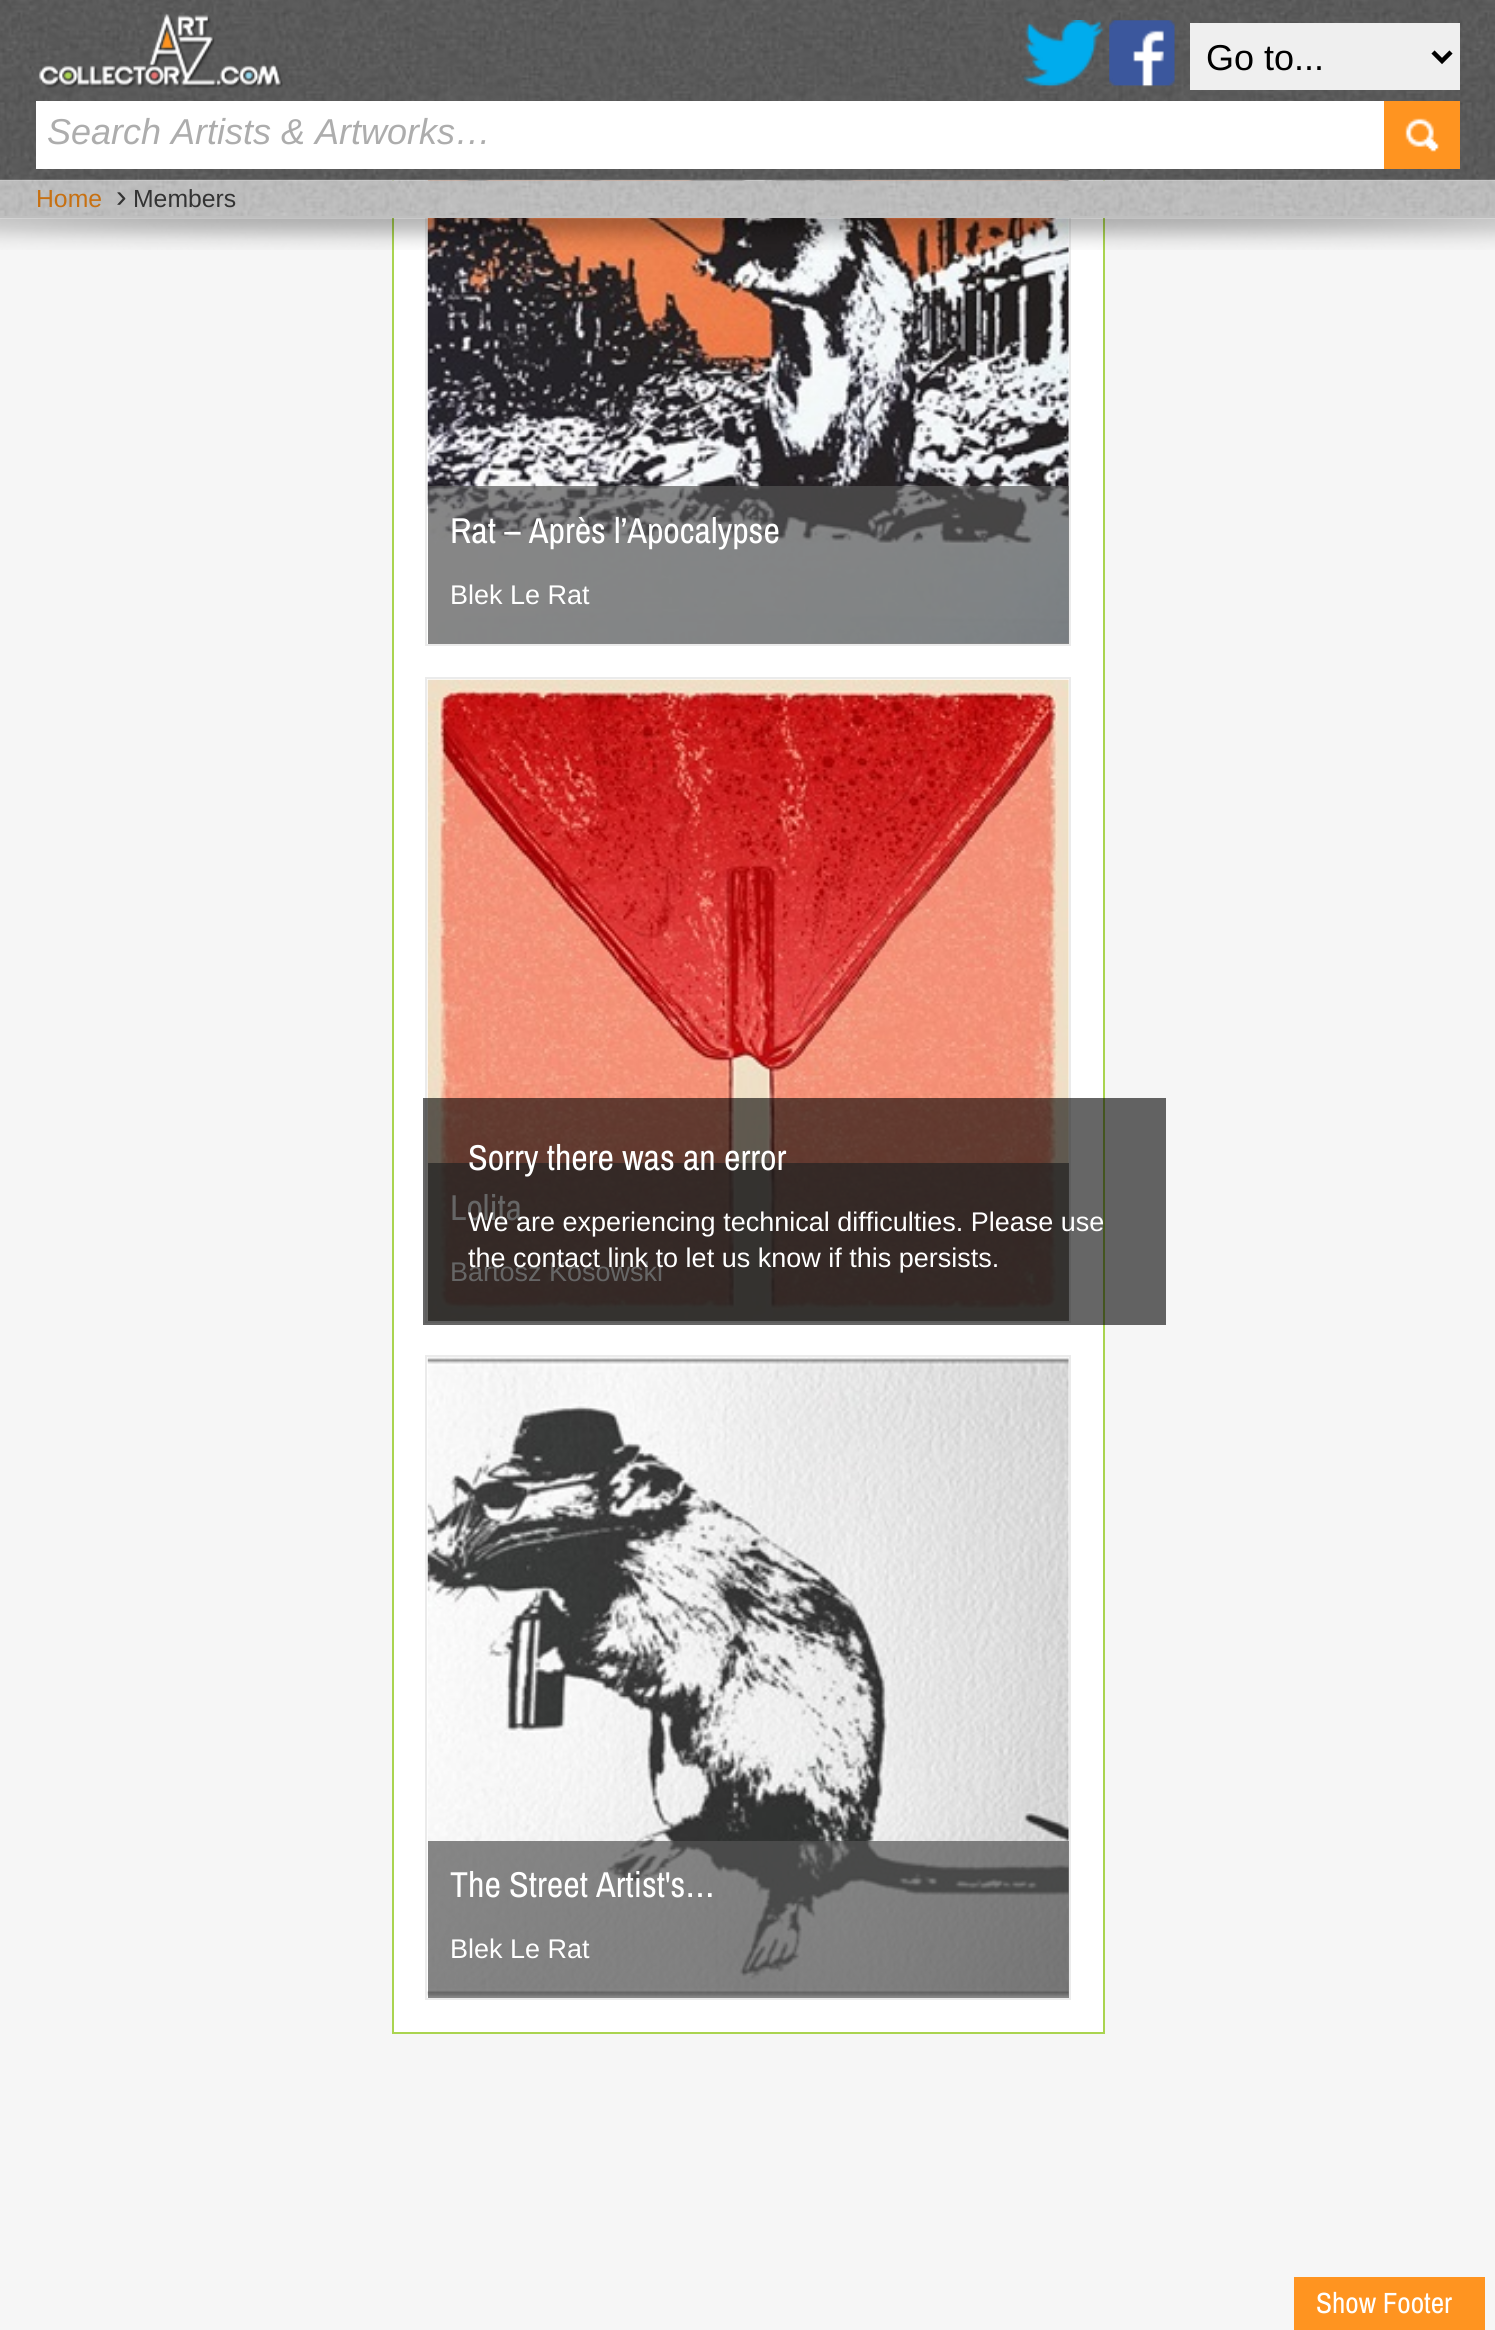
import math
import cairocffi as cairo

surface = cairo.ImageSurface(cairo.FORMAT_RGB24, 1495, 2330)
cr = cairo.Context(surface)
options = cairo.FontOptions()
options.set_hint_metrics(cairo.HINT_METRICS_OFF)
options.set_hint_style(cairo.HINT_STYLE_NONE)
cr.set_font_options(options)
cr.set_miter_limit(4)


def use_color(code):
    cr.set_source_rgb(*(v / 255 for v in bytes.fromhex(code[-6:])))


def picture(path, x, y, w, h):
    cr.save()
    cr.set_source_surface(cairo.ImageSurface.create_from_png(path), x, y)
    cr.rectangle(x, y, w, h)
    cr.fill()
    cr.restore()


use_color("#f6f6f6")
cr.paint()
use_color("#ffffff")
cr.rectangle(394, 180, 709, 1852)
cr.fill()
cr.rectangle(393, -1, 711, 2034)
use_color("#aad450")
cr.stroke()
cr.rectangle(426, 1, 644, 644)
use_color("#ebebeb")
cr.stroke()
picture("img1.png", 0, 0, 1495, 180)
picture("img2.png", 38, 13, 245, 75)
picture("img3.png", 1023, 20, 80, 67)
picture("img4.png", 1109, 20, 66, 67)
use_color("#efefef")
cr.rectangle(1190, 23, 270, 67)
cr.fill()
cr.new_path()
cr.move_to(1433, 52)
cr.line_to(1442, 61)
cr.line_to(1451, 52)
use_color("#000000")
cr.set_line_width(4.5)
cr.stroke()
cr.select_font_face("Liberation Sans")
cr.set_font_size(36)
cr.move_to(1206, 70)
cr.show_text("Go to...")
use_color("#ffffff")
cr.rectangle(36, 101, 1348, 68)
cr.fill()
cr.select_font_face("Liberation Sans", cairo.FONT_SLANT_ITALIC)
use_color("#adadad")
cr.move_to(47, 144)
cr.show_text("Search Artists & Artworks…")
use_color("#ff9420")
cr.rectangle(1384, 101, 76, 68)
cr.fill()
picture("img5.png", 1405, 118, 34, 34)
picture("img8.png", 427, 180, 642, 464)
picture("img6.png", 0, 179, 1495, 37)
use_color("#bfbfbf")
cr.rectangle(0, 216, 1495, 2)
cr.fill()
cr.select_font_face("Liberation Sans")
cr.set_font_size(24.75)
use_color("#c77011")
cr.move_to(36, 207)
cr.show_text("Home")
cr.set_font_size(32)
use_color("#333333")
cr.move_to(116, 207)
cr.show_text("›")
cr.set_font_size(24.75)
cr.move_to(133, 207)
cr.show_text("Members")
picture("img7.png", 0, 218, 1495, 32)
cr.set_source_rgba(0.333, 0.333, 0.333, 0.7)
cr.rectangle(428, 486, 641, 158)
cr.fill()
cr.select_font_face("Archivo Narrow")
cr.set_font_size(36)
use_color("#ffffff")
cr.move_to(450, 543)
cr.show_text("Rat – Après l’Apocalypse")
cr.select_font_face("Liberation Sans")
cr.set_font_size(27)
cr.move_to(450, 604)
cr.show_text("Blek Le Rat")
cr.rectangle(426, 678, 644, 644)
use_color("#ebebeb")
cr.set_line_width(2)
cr.stroke()
picture("img9.png", 427, 679, 642, 642)
cr.set_source_rgba(0.333, 0.333, 0.333, 0.7)
cr.rectangle(428, 1163, 641, 158)
cr.fill()
cr.select_font_face("Archivo Narrow")
cr.set_font_size(36)
use_color("#ffffff")
cr.move_to(450, 1220)
cr.show_text("Lolita")
cr.select_font_face("Liberation Sans")
cr.set_font_size(27)
cr.move_to(450, 1281)
cr.show_text("Bartosz Kosowski")
cr.rectangle(426, 1356, 644, 643)
use_color("#ebebeb")
cr.stroke()
picture("img10.png", 427, 1357, 642, 640)
cr.set_source_rgba(0.333, 0.333, 0.333, 0.7)
cr.rectangle(428, 1841, 641, 157)
cr.fill()
cr.select_font_face("Archivo Narrow")
cr.set_font_size(36)
use_color("#ffffff")
cr.move_to(450, 1897)
cr.show_text("The Street Artist's…")
cr.select_font_face("Liberation Sans")
cr.set_font_size(27)
cr.move_to(450, 1958)
cr.show_text("Blek Le Rat")
cr.set_source_rgba(0, 0, 0, 0.6)
cr.rectangle(423, 1098, 743, 227)
cr.fill()
cr.select_font_face("Archivo Narrow")
cr.set_font_size(36)
use_color("#ffffff")
cr.move_to(468, 1170)
cr.show_text("Sorry there was an error")
cr.select_font_face("Liberation Sans")
cr.set_font_size(27)
cr.move_to(468, 1231)
cr.show_text("We are experiencing technical difficulties. Please use")
cr.move_to(468, 1267)
cr.show_text("the contact link to let us know if this persists.")
use_color("#ff9420")
cr.rectangle(1294, 2277, 191, 53)
cr.fill()
cr.select_font_face("Archivo Narrow")
cr.set_font_size(29.25)
use_color("#ffffff")
cr.move_to(1316, 2313)
cr.show_text("Show Footer")
surface.write_to_png("result.png")
